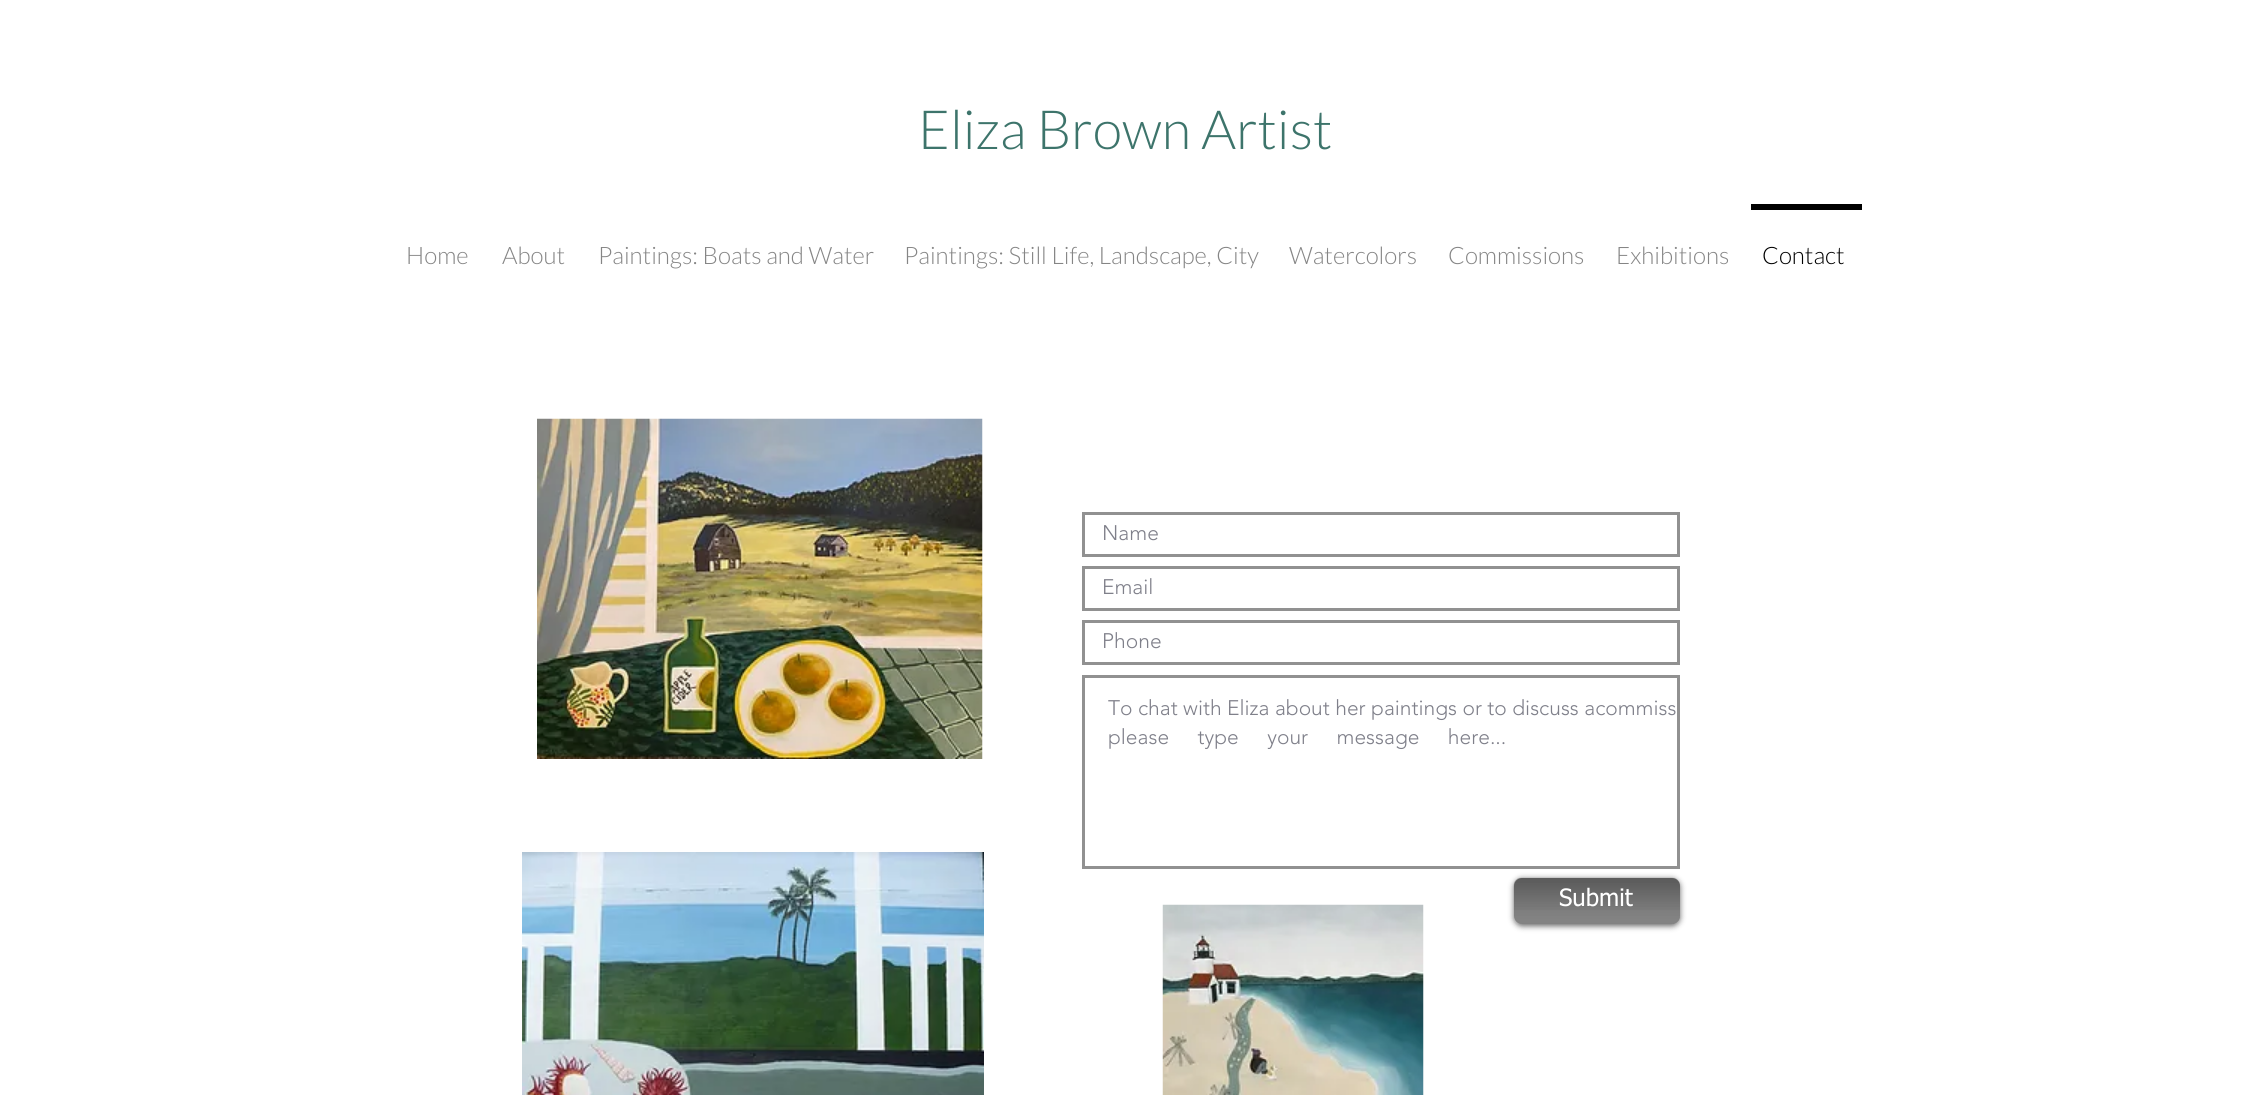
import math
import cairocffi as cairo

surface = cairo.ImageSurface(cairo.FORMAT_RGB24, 2254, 1095)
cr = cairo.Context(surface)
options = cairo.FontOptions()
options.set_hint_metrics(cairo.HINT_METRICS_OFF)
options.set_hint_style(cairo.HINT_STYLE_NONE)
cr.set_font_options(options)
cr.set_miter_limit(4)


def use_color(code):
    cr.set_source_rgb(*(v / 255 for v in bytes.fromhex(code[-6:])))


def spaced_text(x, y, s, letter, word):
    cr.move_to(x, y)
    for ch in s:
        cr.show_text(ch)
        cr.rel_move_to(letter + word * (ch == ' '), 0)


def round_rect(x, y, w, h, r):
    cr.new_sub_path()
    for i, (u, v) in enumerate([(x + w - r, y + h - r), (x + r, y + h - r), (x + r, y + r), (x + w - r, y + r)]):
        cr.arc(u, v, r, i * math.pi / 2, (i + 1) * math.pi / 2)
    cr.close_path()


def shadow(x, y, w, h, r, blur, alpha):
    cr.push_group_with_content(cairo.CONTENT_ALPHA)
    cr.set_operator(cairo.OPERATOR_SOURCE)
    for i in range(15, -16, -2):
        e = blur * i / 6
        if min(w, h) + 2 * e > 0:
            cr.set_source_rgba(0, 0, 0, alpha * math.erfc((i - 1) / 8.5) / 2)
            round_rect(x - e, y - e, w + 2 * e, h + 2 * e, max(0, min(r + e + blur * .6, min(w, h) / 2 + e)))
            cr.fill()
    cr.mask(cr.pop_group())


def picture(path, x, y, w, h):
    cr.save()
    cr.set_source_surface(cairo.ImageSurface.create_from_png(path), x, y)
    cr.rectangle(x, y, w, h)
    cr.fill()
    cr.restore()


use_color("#ffffff")
cr.paint()
cr.select_font_face("Lato Light")
cr.set_font_size(54)
use_color("#3d746b")
cr.move_to(918, 149)
cr.show_text("Eliza Brown Artist")
cr.set_font_size(24)
use_color("#858585")
cr.move_to(406, 264)
cr.show_text("Home")
cr.move_to(502, 264)
cr.show_text("About")
cr.move_to(598, 264)
cr.show_text("Paintings: Boats and Water")
cr.move_to(904, 264)
cr.show_text("Paintings: Still Life, Landscape, City")
cr.move_to(1289, 264)
cr.show_text("Watercolors")
cr.move_to(1448, 264)
cr.show_text("Commissions")
cr.move_to(1616, 264)
cr.show_text("Exhibitions")
use_color("#000000")
cr.rectangle(1751, 204, 111, 6)
cr.fill()
cr.move_to(1762, 264)
cr.show_text("Contact")
picture("img1.png", 537, 418, 446, 341)
cr.rectangle(1083.5, 513.5, 595, 42)
use_color("#919191")
cr.set_line_width(3)
cr.stroke()
cr.select_font_face("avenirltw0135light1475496 Light")
cr.set_font_size(21)
use_color("#7f808a")
cr.move_to(1102, 540)
cr.show_text("Name")
cr.rectangle(1083.5, 567.5, 595, 42)
use_color("#919191")
cr.stroke()
use_color("#7f808a")
cr.move_to(1102, 594)
cr.show_text("Email")
cr.rectangle(1083.5, 621.5, 595, 42)
use_color("#919191")
cr.stroke()
use_color("#7f808a")
cr.move_to(1102, 648)
cr.show_text("Phone")
cr.rectangle(1083.5, 676.5, 595, 191)
use_color("#919191")
cr.stroke()
use_color("#7f808a")
cr.move_to(1108, 715)
cr.show_text("To chat with Eliza about her paintings or to discuss acommiss")
spaced_text(1108, 744, "please type your message here...", 0, 23)
use_color("#000000")
shadow(1514, 879, 166, 47, 8, 3, 0.6)
use_color("#666666")
round_rect(1514, 878, 166, 46, 8)
cr.fill()
picture("img2.png", 1513, 877, 167, 33)
picture("img3.png", 1514, 878, 166, 46)
cr.select_font_face("tahoma")
cr.set_font_size(24)
use_color("#ffffff")
cr.move_to(1559, 906)
cr.show_text("Submit")
picture("img4.png", 522, 852, 462, 243)
picture("img5.png", 1162, 904, 262, 191)
surface.write_to_png("result.png")
